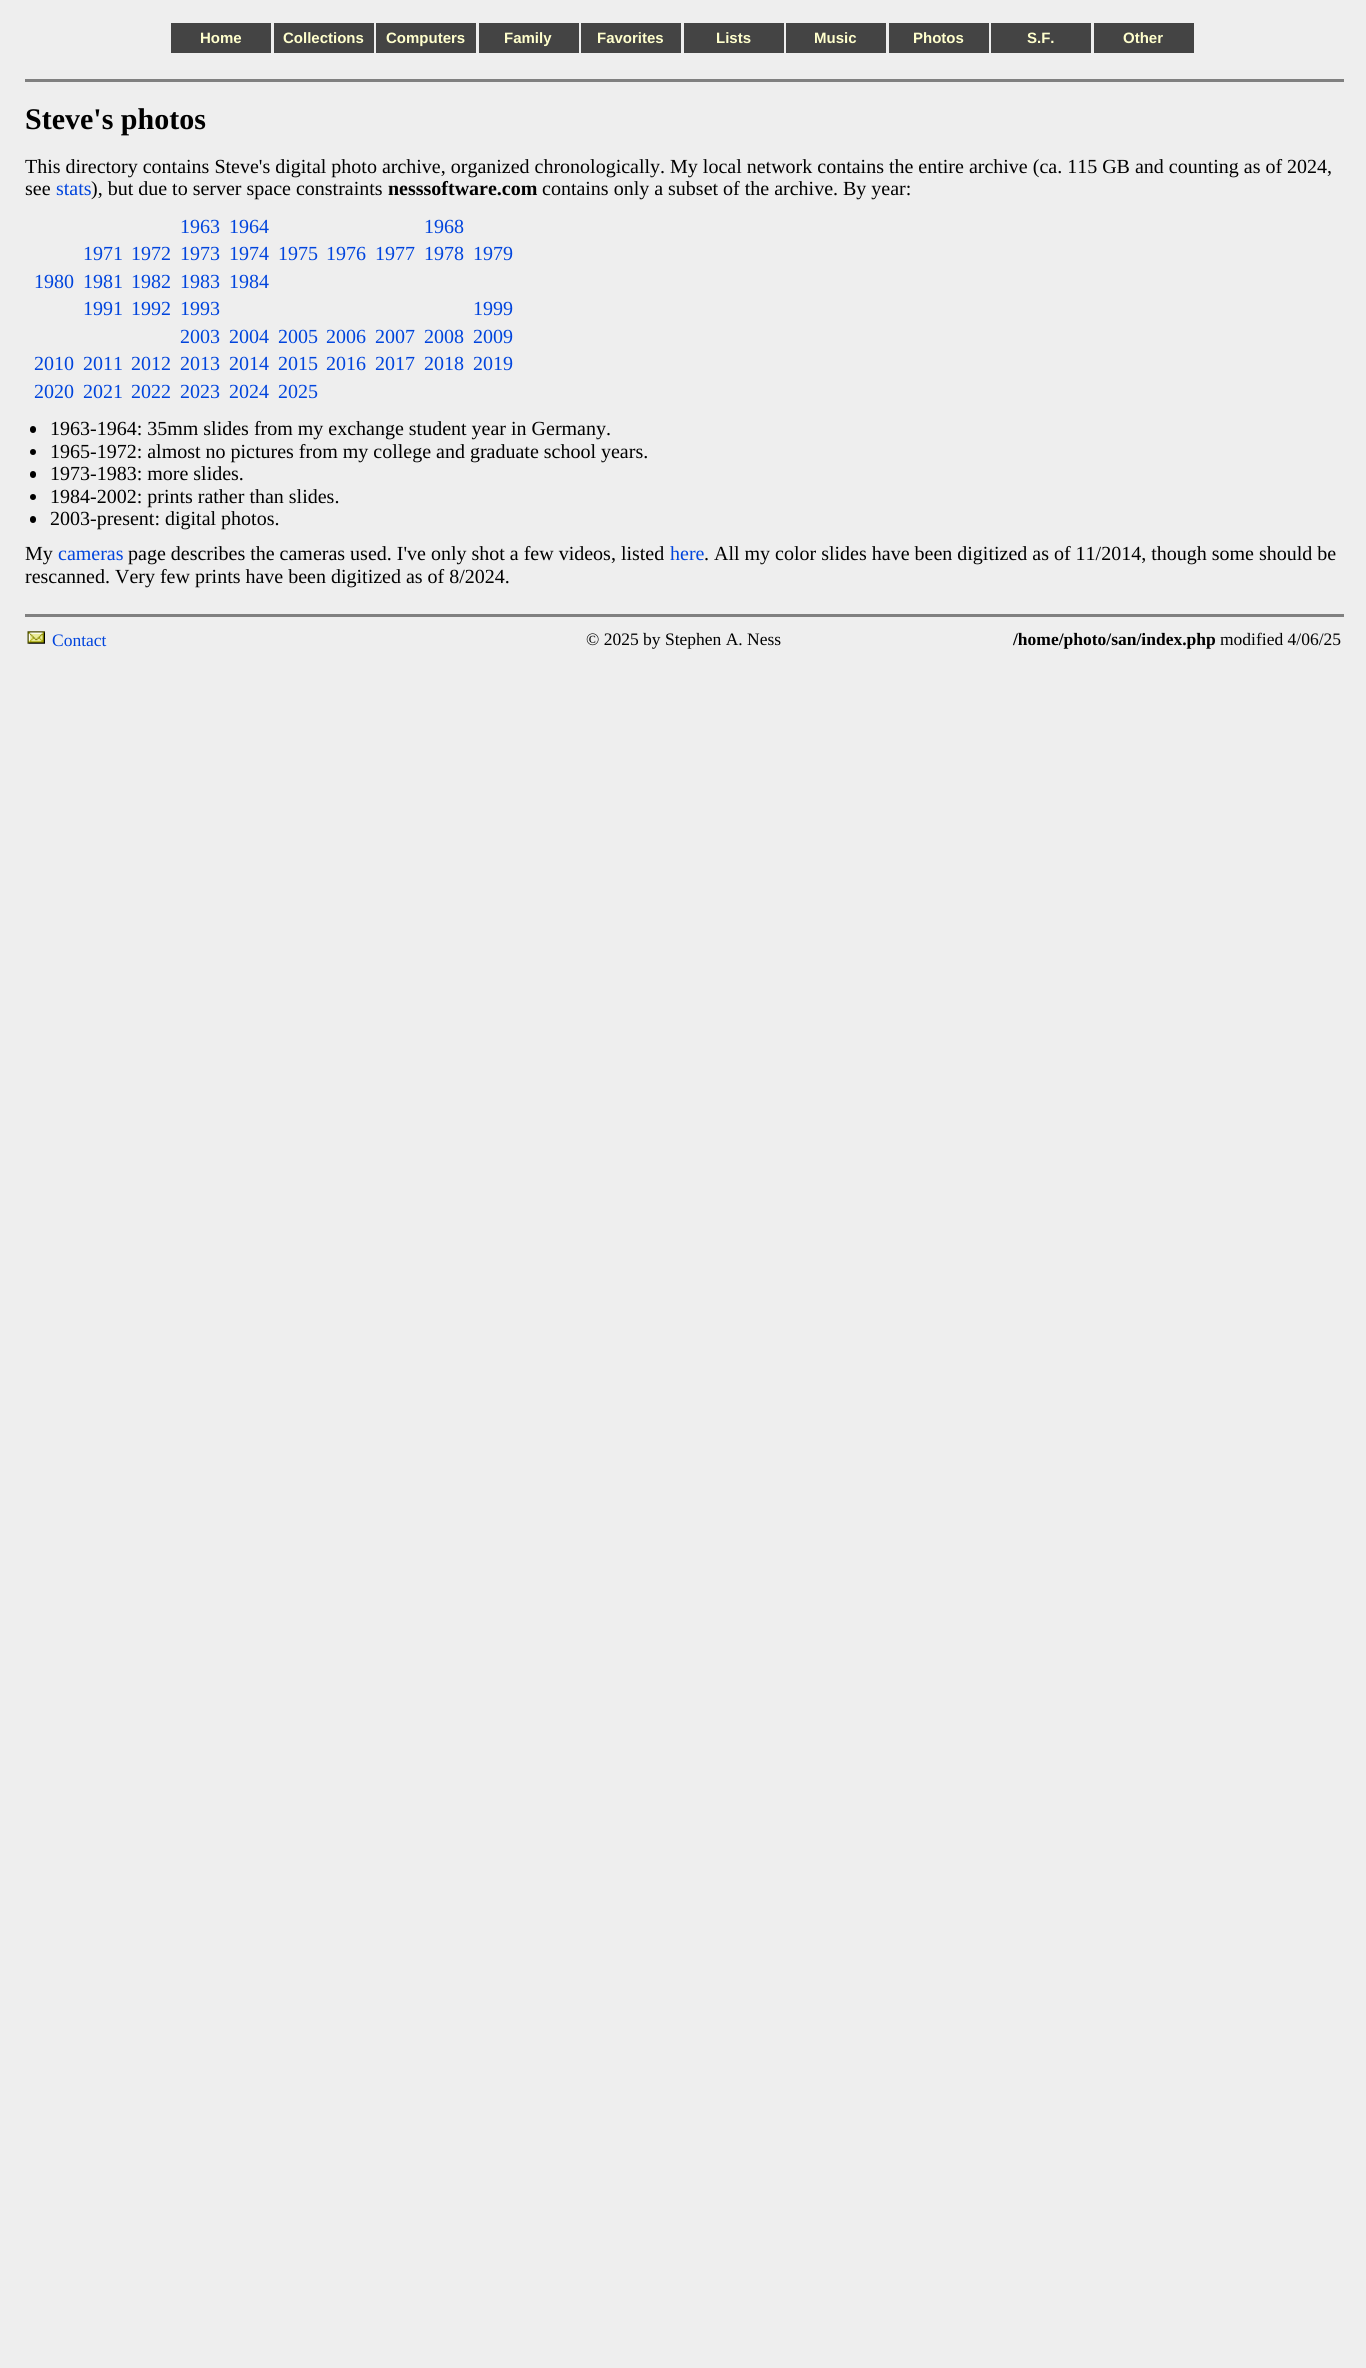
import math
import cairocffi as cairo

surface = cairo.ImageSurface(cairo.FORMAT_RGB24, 1366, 2368)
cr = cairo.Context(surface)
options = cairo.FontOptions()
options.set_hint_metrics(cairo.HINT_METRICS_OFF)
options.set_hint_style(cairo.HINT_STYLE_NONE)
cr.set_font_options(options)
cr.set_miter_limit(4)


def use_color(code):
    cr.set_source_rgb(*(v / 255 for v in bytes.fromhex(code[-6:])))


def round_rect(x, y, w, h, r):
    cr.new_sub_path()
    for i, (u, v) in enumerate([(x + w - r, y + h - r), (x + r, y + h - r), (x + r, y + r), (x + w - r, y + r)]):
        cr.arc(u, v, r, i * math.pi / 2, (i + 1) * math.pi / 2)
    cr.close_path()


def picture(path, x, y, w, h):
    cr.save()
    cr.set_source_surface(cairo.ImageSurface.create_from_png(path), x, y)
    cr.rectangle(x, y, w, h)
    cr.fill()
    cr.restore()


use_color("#eeeeee")
cr.paint()
use_color("#444444")
cr.rectangle(171, 23, 100, 30)
cr.fill()
cr.select_font_face("Liberation Sans", cairo.FONT_SLANT_NORMAL, cairo.FONT_WEIGHT_BOLD)
cr.set_font_size(15)
use_color("#ffffcc")
cr.move_to(200, 43)
cr.show_text("Home")
use_color("#444444")
cr.rectangle(274, 23, 100, 30)
cr.fill()
use_color("#ffffcc")
cr.move_to(283, 43)
cr.show_text("Collections")
use_color("#444444")
cr.rectangle(376, 23, 100, 30)
cr.fill()
use_color("#ffffcc")
cr.move_to(386, 43)
cr.show_text("Computers")
use_color("#444444")
cr.rectangle(479, 23, 100, 30)
cr.fill()
use_color("#ffffcc")
cr.move_to(504, 43)
cr.show_text("Family")
use_color("#444444")
cr.rectangle(581, 23, 100, 30)
cr.fill()
use_color("#ffffcc")
cr.move_to(597, 43)
cr.show_text("Favorites")
use_color("#444444")
cr.rectangle(684, 23, 100, 30)
cr.fill()
use_color("#ffffcc")
cr.move_to(716, 43)
cr.show_text("Lists")
use_color("#444444")
cr.rectangle(786, 23, 100, 30)
cr.fill()
use_color("#ffffcc")
cr.move_to(814, 43)
cr.show_text("Music")
use_color("#444444")
cr.rectangle(889, 23, 100, 30)
cr.fill()
use_color("#ffffcc")
cr.move_to(913, 43)
cr.show_text("Photos")
use_color("#444444")
cr.rectangle(991, 23, 100, 30)
cr.fill()
use_color("#ffffcc")
cr.move_to(1027, 43)
cr.show_text("S.F.")
use_color("#444444")
cr.rectangle(1094, 23, 100, 30)
cr.fill()
use_color("#ffffcc")
cr.move_to(1123, 43)
cr.show_text("Other")
use_color("#808080")
cr.rectangle(25, 79, 1319, 3)
cr.fill()
cr.select_font_face("Liberation Serif", cairo.FONT_SLANT_NORMAL, cairo.FONT_WEIGHT_BOLD)
cr.set_font_size(30)
use_color("#000000")
cr.move_to(25, 129)
cr.show_text("Steve's photos")
cr.select_font_face("Liberation Serif")
cr.set_font_size(20)
cr.move_to(25, 173)
cr.show_text("This directory contains Steve's digital photo archive, organized chronologically. My local network contains the entire archive (ca. 115 GB and counting as of 2024,")
cr.move_to(25, 195)
cr.show_text("see")
use_color("#0044dd")
cr.move_to(56, 195)
cr.show_text("stats")
use_color("#000000")
cr.move_to(91, 195)
cr.show_text("), but due to server space constraints")
cr.select_font_face("Liberation Serif", cairo.FONT_SLANT_NORMAL, cairo.FONT_WEIGHT_BOLD)
cr.move_to(388, 195)
cr.show_text("nesssoftware.com")
cr.select_font_face("Liberation Serif")
cr.move_to(542, 195)
cr.show_text("contains only a subset of the archive. By year:")
use_color("#0044dd")
cr.move_to(180, 233)
cr.show_text("1963")
cr.move_to(229, 233)
cr.show_text("1964")
cr.move_to(424, 233)
cr.show_text("1968")
cr.move_to(83, 260)
cr.show_text("1971")
cr.move_to(131, 260)
cr.show_text("1972")
cr.move_to(180, 260)
cr.show_text("1973")
cr.move_to(229, 260)
cr.show_text("1974")
cr.move_to(278, 260)
cr.show_text("1975")
cr.move_to(326, 260)
cr.show_text("1976")
cr.move_to(375, 260)
cr.show_text("1977")
cr.move_to(424, 260)
cr.show_text("1978")
cr.move_to(473, 260)
cr.show_text("1979")
cr.move_to(34, 288)
cr.show_text("1980")
cr.move_to(83, 288)
cr.show_text("1981")
cr.move_to(131, 288)
cr.show_text("1982")
cr.move_to(180, 288)
cr.show_text("1983")
cr.move_to(229, 288)
cr.show_text("1984")
cr.move_to(83, 315)
cr.show_text("1991")
cr.move_to(131, 315)
cr.show_text("1992")
cr.move_to(180, 315)
cr.show_text("1993")
cr.move_to(473, 315)
cr.show_text("1999")
cr.move_to(180, 343)
cr.show_text("2003")
cr.move_to(229, 343)
cr.show_text("2004")
cr.move_to(278, 343)
cr.show_text("2005")
cr.move_to(326, 343)
cr.show_text("2006")
cr.move_to(375, 343)
cr.show_text("2007")
cr.move_to(424, 343)
cr.show_text("2008")
cr.move_to(473, 343)
cr.show_text("2009")
cr.move_to(34, 370)
cr.show_text("2010")
cr.move_to(83, 370)
cr.show_text("2011")
cr.move_to(131, 370)
cr.show_text("2012")
cr.move_to(180, 370)
cr.show_text("2013")
cr.move_to(229, 370)
cr.show_text("2014")
cr.move_to(278, 370)
cr.show_text("2015")
cr.move_to(326, 370)
cr.show_text("2016")
cr.move_to(375, 370)
cr.show_text("2017")
cr.move_to(424, 370)
cr.show_text("2018")
cr.move_to(473, 370)
cr.show_text("2019")
cr.move_to(34, 398)
cr.show_text("2020")
cr.move_to(83, 398)
cr.show_text("2021")
cr.move_to(131, 398)
cr.show_text("2022")
cr.move_to(180, 398)
cr.show_text("2023")
cr.move_to(229, 398)
cr.show_text("2024")
cr.move_to(278, 398)
cr.show_text("2025")
use_color("#000000")
round_rect(30, 426, 6, 7, 3)
cr.fill()
cr.move_to(50, 435)
cr.show_text("1963-1964: 35mm slides from my exchange student year in Germany.")
cr.new_path()
cr.arc(33, 452, 3, 0, 2 * math.pi)
cr.fill()
cr.move_to(50, 458)
cr.show_text("1965-1972: almost no pictures from my college and graduate school years.")
round_rect(30, 471, 6, 7, 3)
cr.fill()
cr.move_to(50, 480)
cr.show_text("1973-1983: more slides.")
cr.new_path()
cr.arc(33, 497, 3, 0, 2 * math.pi)
cr.fill()
cr.move_to(50, 503)
cr.show_text("1984-2002: prints rather than slides.")
round_rect(30, 516, 6, 7, 3)
cr.fill()
cr.move_to(50, 525)
cr.show_text("2003-present: digital photos.")
cr.move_to(25, 560)
cr.show_text("My")
use_color("#0044dd")
cr.move_to(58, 560)
cr.show_text("cameras")
use_color("#000000")
cr.move_to(128, 560)
cr.show_text("page describes the cameras used. I've only shot a few videos, listed")
use_color("#0044dd")
cr.move_to(670, 560)
cr.show_text("here")
use_color("#000000")
cr.move_to(704, 560)
cr.show_text(". All my color slides have been digitized as of 11/2014, though some should be")
cr.move_to(25, 583)
cr.show_text("rescanned. Very few prints have been digitized as of 8/2024.")
use_color("#808080")
cr.rectangle(25, 614, 1319, 3)
cr.fill()
picture("img1.png", 27, 631, 18, 13)
cr.set_font_size(17.5)
use_color("#0044dd")
cr.move_to(52, 646)
cr.show_text("Contact")
use_color("#000000")
cr.move_to(586, 645)
cr.show_text("© 2025 by Stephen A. Ness")
cr.select_font_face("Liberation Serif", cairo.FONT_SLANT_NORMAL, cairo.FONT_WEIGHT_BOLD)
cr.move_to(1013, 645)
cr.show_text("/home/photo/san/index.php")
cr.select_font_face("Liberation Serif")
cr.move_to(1220, 645)
cr.show_text("modified 4/06/25")
surface.write_to_png("result.png")
